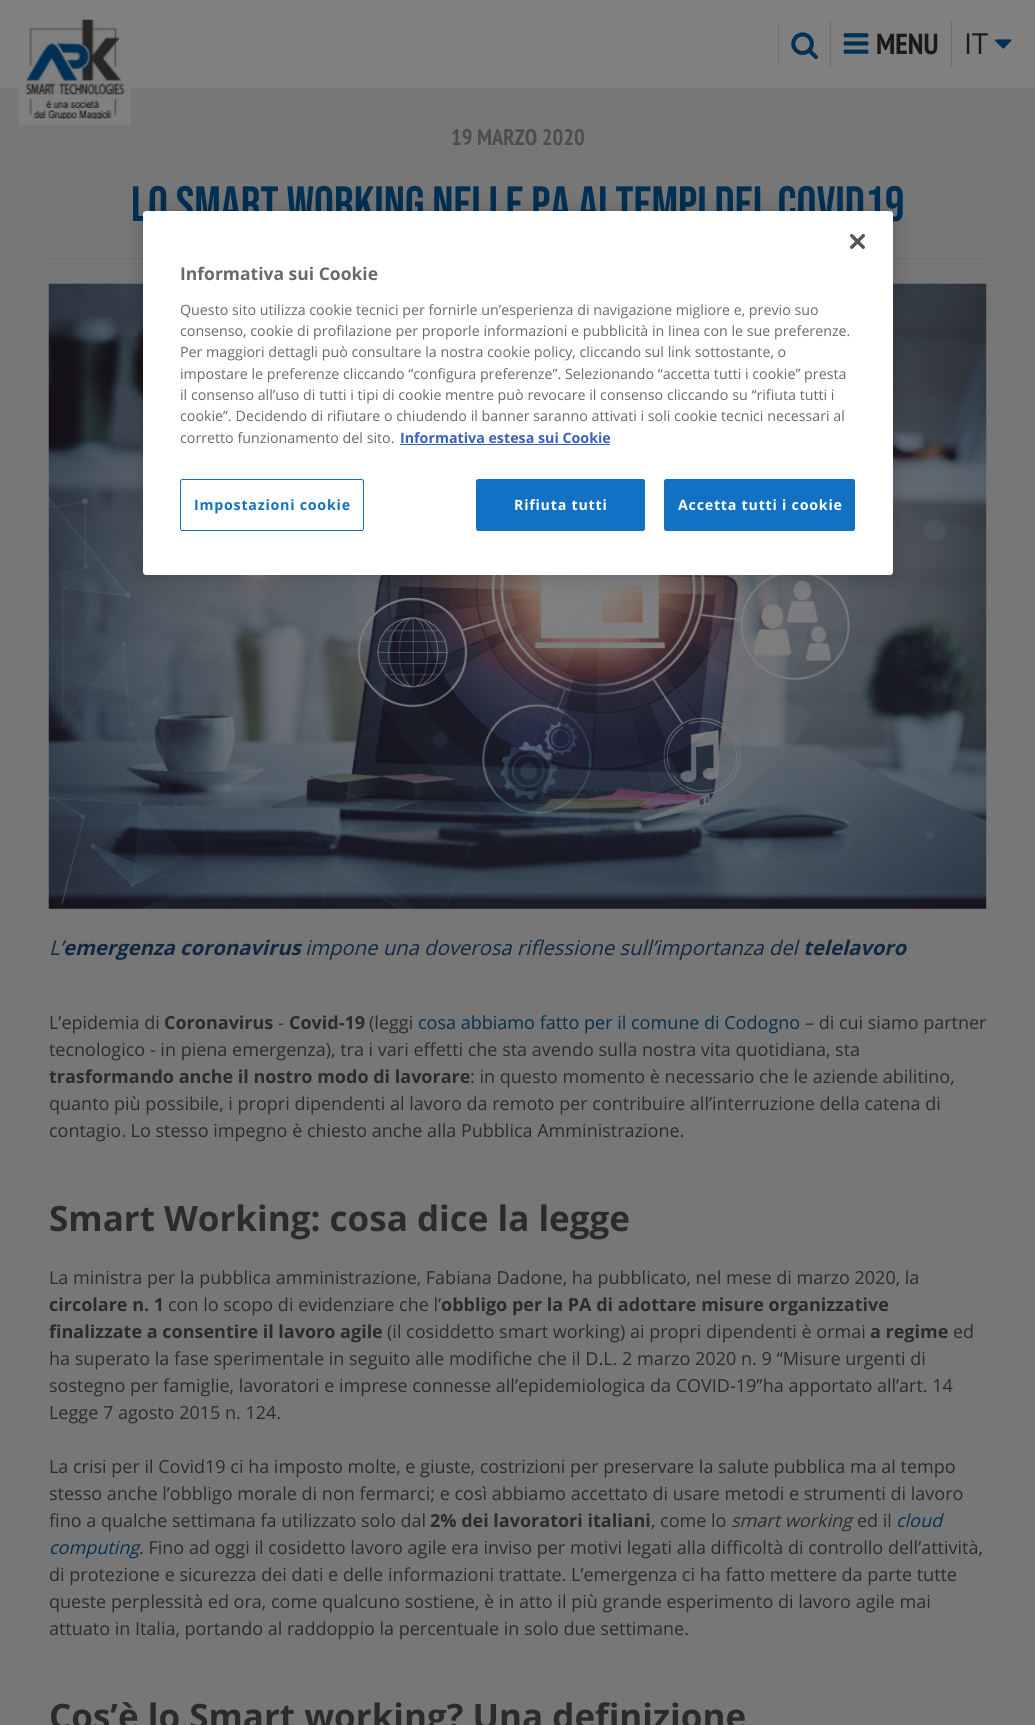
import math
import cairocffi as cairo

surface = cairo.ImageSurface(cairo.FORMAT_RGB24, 1035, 1725)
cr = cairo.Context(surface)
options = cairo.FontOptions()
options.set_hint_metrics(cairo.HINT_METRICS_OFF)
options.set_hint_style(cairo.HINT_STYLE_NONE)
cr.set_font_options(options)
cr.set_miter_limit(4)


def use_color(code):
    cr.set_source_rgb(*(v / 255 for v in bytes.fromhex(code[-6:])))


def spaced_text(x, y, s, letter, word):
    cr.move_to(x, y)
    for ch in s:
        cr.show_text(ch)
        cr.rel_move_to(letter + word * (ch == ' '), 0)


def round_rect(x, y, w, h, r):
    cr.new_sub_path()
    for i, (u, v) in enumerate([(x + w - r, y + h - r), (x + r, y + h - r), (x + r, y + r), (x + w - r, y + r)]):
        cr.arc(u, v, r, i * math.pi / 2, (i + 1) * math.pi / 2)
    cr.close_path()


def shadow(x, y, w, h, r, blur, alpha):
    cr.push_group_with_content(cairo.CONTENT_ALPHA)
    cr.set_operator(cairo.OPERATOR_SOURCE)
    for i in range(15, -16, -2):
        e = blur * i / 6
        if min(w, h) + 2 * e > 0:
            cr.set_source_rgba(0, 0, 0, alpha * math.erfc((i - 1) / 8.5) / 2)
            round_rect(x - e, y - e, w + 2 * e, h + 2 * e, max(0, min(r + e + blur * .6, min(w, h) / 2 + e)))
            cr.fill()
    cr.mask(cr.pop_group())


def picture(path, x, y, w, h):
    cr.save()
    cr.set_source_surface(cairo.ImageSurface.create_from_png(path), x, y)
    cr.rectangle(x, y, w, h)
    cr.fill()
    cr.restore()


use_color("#777777")
cr.paint()
use_color("#808080")
cr.rectangle(0, 0, 1035, 88)
cr.fill()
picture("img1.png", 25, 19, 100, 100)
cr.rectangle(22, 16, 106, 106)
cr.set_line_width(6)
cr.stroke()
use_color("#6f6f6f")
cr.rectangle(778, 21, 1, 45)
cr.fill()
picture("img2.png", 791, 32, 27, 28)
cr.rectangle(830, 20, 1, 48)
cr.fill()
picture("img3.png", 843, 33, 26, 21)
cr.select_font_face("PT Sans Narrow", cairo.FONT_SLANT_NORMAL, cairo.FONT_WEIGHT_BOLD)
cr.set_font_size(29)
use_color("#1a1a1a")
cr.move_to(876, 54)
cr.show_text("MENU")
use_color("#6f6f6f")
cr.rectangle(951, 20, 1, 48)
cr.fill()
cr.select_font_face("Open Sans")
use_color("#1a1a1a")
cr.move_to(964, 54)
cr.show_text("IT")
picture("img4.png", 995, 39, 17, 10)
use_color("#6f6f6f")
cr.rectangle(49, 258, 937, 1)
cr.fill()
cr.select_font_face("PT Sans Narrow", cairo.FONT_SLANT_NORMAL, cairo.FONT_WEIGHT_BOLD)
cr.set_font_size(22.5)
use_color("#4d4d4d")
cr.move_to(451, 145)
cr.show_text("19 MARZO 2020")
cr.select_font_face("Bebas Neue")
cr.set_font_size(49.5)
use_color("#003054")
cr.move_to(131, 221)
cr.show_text("Lo smart working nelle PA ai tempi del Covid19")
picture("img5.png", 48, 283, 939, 626)
cr.select_font_face("Open Sans", cairo.FONT_SLANT_ITALIC)
cr.set_font_size(20.25)
use_color("#112842")
cr.move_to(49, 955)
cr.show_text("L’")
cr.select_font_face("Open Sans", cairo.FONT_SLANT_ITALIC, cairo.FONT_WEIGHT_BOLD)
cr.move_to(63, 955)
cr.show_text("emergenza coronavirus")
cr.select_font_face("Open Sans", cairo.FONT_SLANT_ITALIC)
cr.move_to(305, 955)
cr.show_text("impone una doverosa riflessione sull’importanza del")
cr.select_font_face("Open Sans", cairo.FONT_SLANT_ITALIC, cairo.FONT_WEIGHT_BOLD)
cr.move_to(803, 955)
cr.show_text("telelavoro")
cr.select_font_face("Open Sans")
cr.set_font_size(18)
use_color("#2b2b2b")
cr.move_to(49, 1029)
cr.show_text("L’epidemia di")
cr.select_font_face("Open Sans", cairo.FONT_SLANT_NORMAL, cairo.FONT_WEIGHT_BOLD)
cr.move_to(164, 1029)
cr.show_text("Coronavirus")
cr.select_font_face("Open Sans")
cr.move_to(278, 1029)
cr.show_text("-")
cr.select_font_face("Open Sans", cairo.FONT_SLANT_NORMAL, cairo.FONT_WEIGHT_BOLD)
cr.move_to(289, 1029)
cr.show_text("Covid-19")
cr.select_font_face("Open Sans")
cr.move_to(369, 1029)
cr.show_text("(leggi")
use_color("#003054")
cr.move_to(418, 1029)
cr.show_text("cosa abbiamo fatto per il comune di Codogno")
use_color("#2b2b2b")
cr.move_to(805, 1029)
cr.show_text("– di cui siamo partner")
cr.move_to(49, 1056)
cr.show_text("tecnologico - in piena emergenza), tra i vari effetti che sta avendo sulla nostra vita quotidiana, sta")
cr.select_font_face("Open Sans", cairo.FONT_SLANT_NORMAL, cairo.FONT_WEIGHT_BOLD)
cr.move_to(49, 1083)
cr.show_text("trasformando anche il nostro modo di lavorare")
cr.select_font_face("Open Sans")
cr.move_to(470, 1083)
cr.show_text(": in questo momento è necessario che le aziende abilitino,")
cr.move_to(49, 1110)
cr.show_text("quanto più possibile, i propri dipendenti al lavoro da remoto per contribuire all’interruzione della catena di")
cr.move_to(49, 1137)
cr.show_text("contagio. Lo stesso impegno è chiesto anche alla Pubblica Amministrazione.")
cr.select_font_face("Open Sans", cairo.FONT_SLANT_NORMAL, cairo.FONT_WEIGHT_BOLD)
cr.set_font_size(35)
cr.move_to(49, 1231)
cr.show_text("Smart Working: cosa dice la legge")
cr.select_font_face("Open Sans")
cr.set_font_size(18)
cr.move_to(49, 1284)
cr.show_text("La ministra per la pubblica amministrazione, Fabiana Dadone, ha pubblicato, nel mese di marzo 2020, la")
cr.select_font_face("Open Sans", cairo.FONT_SLANT_NORMAL, cairo.FONT_WEIGHT_BOLD)
cr.move_to(49, 1311)
cr.show_text("circolare n. 1")
cr.select_font_face("Open Sans")
cr.move_to(168, 1311)
cr.show_text("con lo scopo di evidenziare che l’")
cr.select_font_face("Open Sans", cairo.FONT_SLANT_NORMAL, cairo.FONT_WEIGHT_BOLD)
cr.move_to(441, 1311)
cr.show_text("obbligo per la PA di adottare misure organizzative")
cr.move_to(49, 1338)
cr.show_text("finalizzate a consentire il lavoro agile")
cr.select_font_face("Open Sans")
cr.move_to(387, 1338)
cr.show_text("(il cosiddetto smart working) ai propri dipendenti è ormai")
cr.select_font_face("Open Sans", cairo.FONT_SLANT_NORMAL, cairo.FONT_WEIGHT_BOLD)
cr.move_to(870, 1338)
cr.show_text("a regime")
cr.select_font_face("Open Sans")
cr.move_to(953, 1338)
cr.show_text("ed")
cr.move_to(49, 1365)
cr.show_text("ha superato la fase sperimentale in seguito alle modifiche che il D.L. 2 marzo 2020 n. 9 “Misure urgenti di")
cr.move_to(49, 1392)
cr.show_text("sostegno per famiglie, lavoratori e imprese connesse all’epidemiologica da COVID-19”ha apportato all’art. 14")
cr.move_to(49, 1419)
cr.show_text("Legge 7 agosto 2015 n. 124.")
cr.move_to(49, 1473)
cr.show_text("La crisi per il Covid19 ci ha imposto molte, e giuste, costrizioni per preservare la salute pubblica ma al tempo")
cr.move_to(49, 1500)
cr.show_text("stesso anche l’obbligo morale di non fermarci; e così abbiamo accettato di usare metodi e strumenti di lavoro")
cr.move_to(49, 1527)
cr.show_text("fino a qualche settimana fa utilizzato solo dal")
cr.select_font_face("Open Sans", cairo.FONT_SLANT_NORMAL, cairo.FONT_WEIGHT_BOLD)
cr.move_to(430, 1527)
cr.show_text("2% dei lavoratori italiani")
cr.select_font_face("Open Sans")
cr.move_to(651, 1527)
cr.show_text(", come lo")
cr.select_font_face("Open Sans", cairo.FONT_SLANT_ITALIC)
cr.move_to(731, 1527)
cr.show_text("smart working")
cr.select_font_face("Open Sans")
cr.move_to(857, 1527)
cr.show_text("ed il")
cr.select_font_face("Open Sans", cairo.FONT_SLANT_ITALIC)
use_color("#003054")
cr.move_to(896, 1527)
cr.show_text("cloud")
cr.move_to(49, 1554)
cr.show_text("computing")
cr.select_font_face("Open Sans")
use_color("#2b2b2b")
cr.move_to(139, 1554)
cr.show_text(". Fino ad oggi il cosidetto lavoro agile era inviso per motivi legati alla difficoltà di controllo dell’attività,")
cr.move_to(49, 1581)
cr.show_text("di protezione e sicurezza dei dati e delle informazioni trattate. L’emergenza ci ha fatto mettere da parte tutte")
cr.move_to(49, 1608)
cr.show_text("queste perplessità ed ora, come qualcuno sostiene, è in atto il più grande esperimento di lavoro agile mai")
cr.move_to(49, 1635)
cr.show_text("attuato in Italia, portando al raddoppio la percentuale in solo due settimane.")
cr.select_font_face("Open Sans", cairo.FONT_SLANT_NORMAL, cairo.FONT_WEIGHT_BOLD)
cr.set_font_size(35)
cr.move_to(49, 1729)
cr.show_text("Cos’è lo Smart working? Una definizione")
use_color("#000000")
shadow(143, 211, 750, 364, 3, 11, 0.2)
use_color("#ffffff")
round_rect(143, 211, 750, 364, 3)
cr.fill()
picture("img6.png", 850, 234, 15, 15)
cr.set_font_size(17.5)
use_color("#696969")
cr.move_to(180, 280)
cr.show_text("Informativa sui Cookie")
cr.select_font_face("Open Sans")
cr.set_font_size(14.25)
cr.move_to(180, 315)
cr.show_text("Questo sito utilizza cookie tecnici per fornirle un’esperienza di navigazione migliore e, previo suo")
cr.move_to(180, 336)
cr.show_text("consenso, cookie di profilazione per proporle informazioni e pubblicità in linea con le sue preferenze.")
cr.move_to(180, 357)
cr.show_text("Per maggiori dettagli può consultare la nostra cookie policy, cliccando sul link sottostante, o")
cr.move_to(180, 379)
cr.show_text("impostare le preferenze cliccando “configura preferenze”. Selezionando “accetta tutti i cookie” presta")
cr.move_to(180, 400)
cr.show_text("il consenso all’uso di tutti i tipi di cookie mentre può revocare il consenso cliccando su “rifiuta tutti i")
cr.move_to(180, 421)
cr.show_text("cookie”. Decidendo di rifiutare o chiudendo il banner saranno attivati i soli cookie tecnici necessari al")
cr.move_to(180, 443)
cr.show_text("corretto funzionamento del sito.")
cr.select_font_face("Open Sans", cairo.FONT_SLANT_NORMAL, cairo.FONT_WEIGHT_BOLD)
use_color("#3860be")
cr.move_to(400, 443)
cr.show_text("Informativa estesa sui Cookie")
cr.rectangle(400, 444, 210, 1)
cr.fill()
round_rect(180.5, 479.5, 183, 51, 2)
use_color("#1371c3")
cr.set_line_width(1)
cr.stroke()
spaced_text(194, 510, "Impostazioni cookie", 0.75, 0)
round_rect(476.5, 479.5, 168, 51, 2)
cr.fill_preserve()
cr.stroke()
use_color("#ffffff")
spaced_text(514, 510, "Rifiuta tutti", 0.75, 0)
use_color("#1371c3")
round_rect(664.5, 479.5, 190, 51, 2)
cr.fill_preserve()
cr.stroke()
use_color("#ffffff")
spaced_text(678, 510, "Accetta tutti i cookie", 0.75, 0)
surface.write_to_png("result.png")
